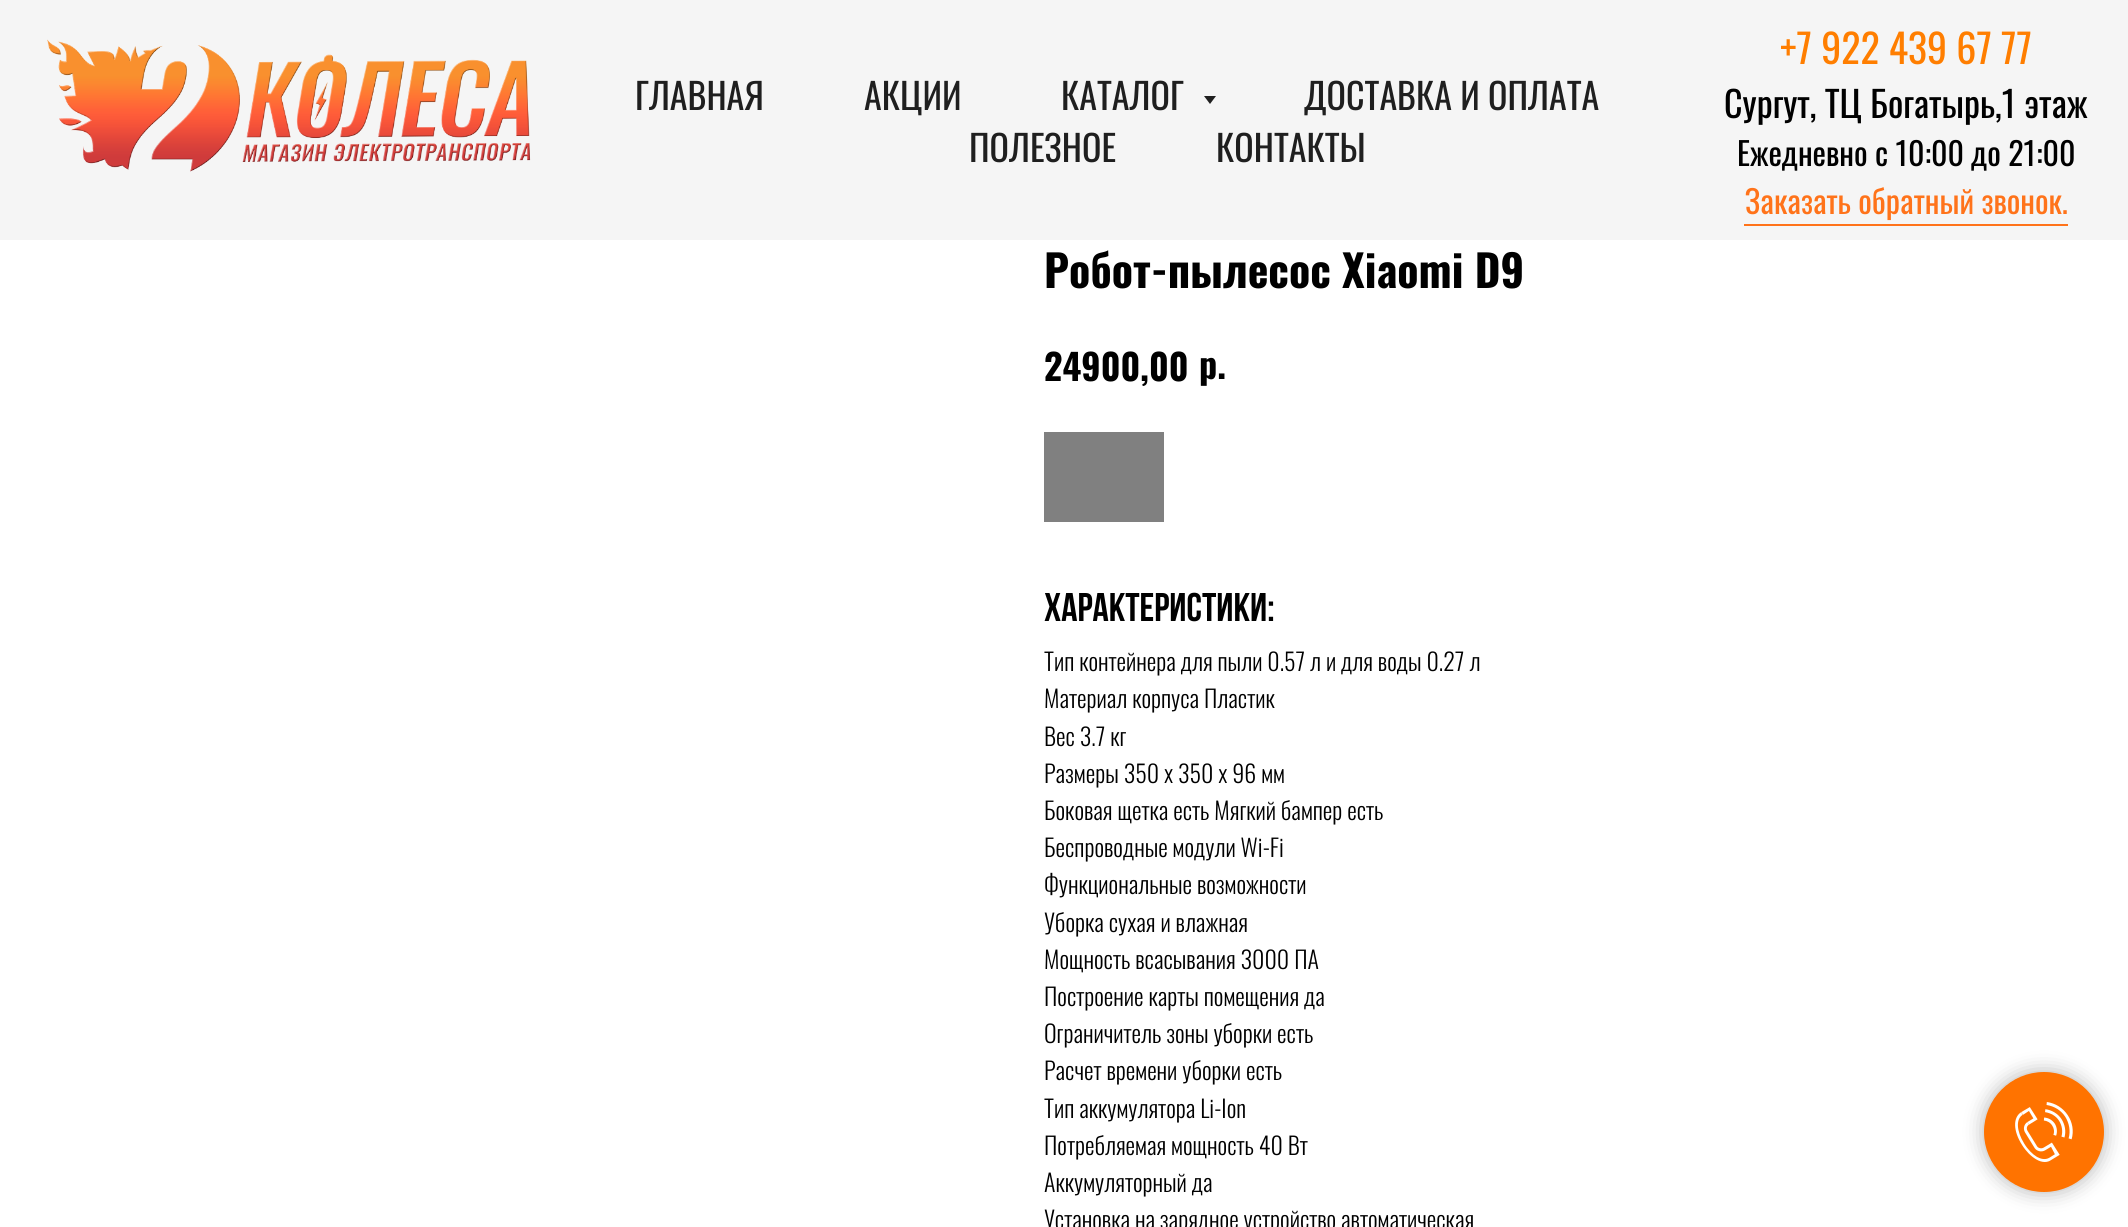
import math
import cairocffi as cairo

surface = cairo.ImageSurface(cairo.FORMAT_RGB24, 2128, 1227)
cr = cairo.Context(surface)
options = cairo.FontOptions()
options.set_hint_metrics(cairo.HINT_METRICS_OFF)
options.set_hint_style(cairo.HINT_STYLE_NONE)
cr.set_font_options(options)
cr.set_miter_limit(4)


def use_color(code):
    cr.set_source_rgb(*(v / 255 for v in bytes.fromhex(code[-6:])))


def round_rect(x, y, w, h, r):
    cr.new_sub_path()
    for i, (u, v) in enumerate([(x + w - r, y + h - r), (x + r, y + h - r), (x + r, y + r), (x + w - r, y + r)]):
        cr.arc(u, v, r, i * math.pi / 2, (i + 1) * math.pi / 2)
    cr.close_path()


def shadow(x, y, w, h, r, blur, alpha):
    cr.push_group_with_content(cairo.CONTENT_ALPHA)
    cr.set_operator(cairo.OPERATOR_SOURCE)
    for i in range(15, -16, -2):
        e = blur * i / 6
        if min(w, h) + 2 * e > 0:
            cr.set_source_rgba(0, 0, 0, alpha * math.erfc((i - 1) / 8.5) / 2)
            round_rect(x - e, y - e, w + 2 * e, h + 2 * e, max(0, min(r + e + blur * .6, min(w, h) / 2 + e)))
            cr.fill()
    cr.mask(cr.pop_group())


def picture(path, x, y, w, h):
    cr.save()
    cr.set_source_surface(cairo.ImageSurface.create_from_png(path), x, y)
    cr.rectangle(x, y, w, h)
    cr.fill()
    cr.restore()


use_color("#ffffff")
cr.paint()
use_color("#f5f5f5")
cr.rectangle(0, 0, 2128, 240)
cr.fill()
picture("img1.png", 47, 39, 484, 133)
cr.select_font_face("Oswald")
cr.set_font_size(36)
use_color("#1f1f1f")
cr.move_to(635, 110)
cr.show_text("ГЛАВНАЯ")
cr.move_to(864, 110)
cr.show_text("АКЦИИ")
cr.move_to(1061, 110)
cr.show_text("КАТАЛОГ")
cr.new_path()
cr.move_to(1204, 96)
cr.line_to(1216, 96)
cr.line_to(1210, 104)
cr.close_path()
cr.fill()
cr.move_to(1304, 110)
cr.show_text("ДОСТАВКА И ОПЛАТА")
cr.move_to(969, 162)
cr.show_text("ПОЛЕЗНОЕ")
cr.move_to(1216, 162)
cr.show_text("КОНТАКТЫ")
cr.set_font_size(40)
use_color("#ff7e00")
cr.move_to(1780, 64)
cr.show_text("+7 922 439 67 77")
cr.set_font_size(36)
use_color("#000000")
cr.move_to(1724, 118)
cr.show_text("Сургут, ТЦ Богатырь,1 этаж")
cr.set_font_size(32)
cr.move_to(1737, 166)
cr.show_text("Ежедневно с 10:00 до 21:00")
use_color("#ff731a")
cr.move_to(1745, 214)
cr.show_text("Заказать обратный звонок.")
cr.rectangle(1744, 224, 324, 2)
cr.fill()
use_color("#000000")
shadow(1984, 1072, 120, 120, 60, 10, 0.3)
use_color("#ff7300")
cr.arc(2044, 1132, 60, 0, 2 * math.pi)
cr.fill()
picture("img2.png", 2015, 1102, 58, 60)
cr.select_font_face("Oswald", cairo.FONT_SLANT_NORMAL, cairo.FONT_WEIGHT_BOLD)
cr.set_font_size(44)
use_color("#000000")
cr.move_to(1044, 288)
cr.show_text("Робот-пылесос Xiaomi D9")
cr.set_font_size(36)
cr.move_to(1044, 381)
cr.show_text("24900,00")
cr.move_to(1199, 379)
cr.show_text("р.")
use_color("#808080")
cr.rectangle(1044, 432, 120, 90)
cr.fill()
cr.select_font_face("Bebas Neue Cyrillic")
cr.set_font_size(40)
use_color("#000000")
cr.move_to(1044, 621)
cr.show_text("Характеристики:")
cr.select_font_face("Oswald Light")
cr.set_font_size(24)
cr.move_to(1044, 671)
cr.show_text("Тип контейнера для пыли 0.57 л и для воды 0.27 л")
cr.move_to(1044, 708)
cr.show_text("Материал корпуса Пластик")
cr.move_to(1044, 746)
cr.show_text("Вес 3.7 кг")
cr.move_to(1044, 783)
cr.show_text("Размеры 350 x 350 x 96 мм")
cr.move_to(1044, 820)
cr.show_text("Боковая щетка есть Мягкий бампер есть")
cr.move_to(1044, 857)
cr.show_text("Беспроводные модули Wi-Fi")
cr.move_to(1044, 894)
cr.show_text("Функциональные возможности")
cr.move_to(1044, 932)
cr.show_text("Уборка сухая и влажная")
cr.move_to(1044, 969)
cr.show_text("Мощность всасывания 3000 ПА")
cr.move_to(1044, 1006)
cr.show_text("Построение карты помещения да")
cr.move_to(1044, 1043)
cr.show_text("Ограничитель зоны уборки есть")
cr.move_to(1044, 1080)
cr.show_text("Расчет времени уборки есть")
cr.move_to(1044, 1118)
cr.show_text("Тип аккумулятора Li-Ion")
cr.move_to(1044, 1155)
cr.show_text("Потребляемая мощность 40 Вт")
cr.move_to(1044, 1192)
cr.show_text("Аккумуляторный да")
cr.move_to(1044, 1229)
cr.show_text("Установка на зарядное устройство автоматическая")
surface.write_to_png("result.png")
